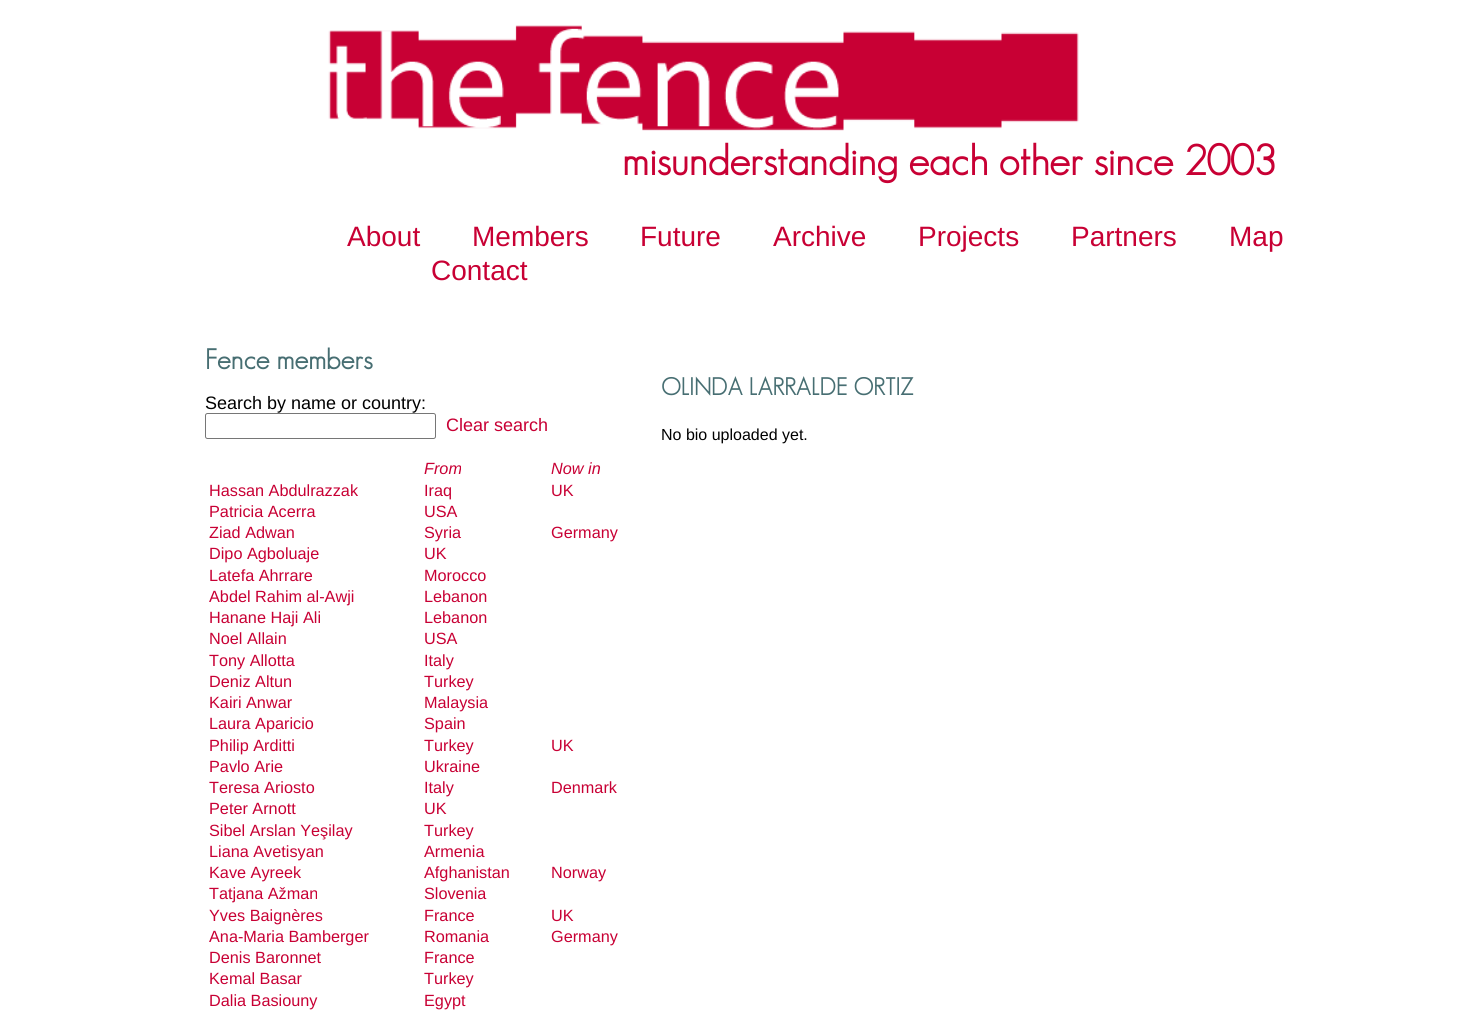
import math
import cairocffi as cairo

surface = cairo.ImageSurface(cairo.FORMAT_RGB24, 1463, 1012)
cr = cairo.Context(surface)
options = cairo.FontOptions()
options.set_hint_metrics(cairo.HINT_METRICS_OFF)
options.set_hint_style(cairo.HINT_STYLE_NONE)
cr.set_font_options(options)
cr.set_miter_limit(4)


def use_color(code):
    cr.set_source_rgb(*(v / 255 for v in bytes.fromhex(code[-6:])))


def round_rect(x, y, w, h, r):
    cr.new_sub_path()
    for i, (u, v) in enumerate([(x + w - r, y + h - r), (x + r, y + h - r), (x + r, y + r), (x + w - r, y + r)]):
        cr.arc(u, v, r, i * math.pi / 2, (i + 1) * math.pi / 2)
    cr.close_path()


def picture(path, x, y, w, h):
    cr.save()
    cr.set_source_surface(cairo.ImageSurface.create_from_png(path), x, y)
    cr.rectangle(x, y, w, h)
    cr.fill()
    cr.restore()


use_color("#ffffff")
cr.paint()
picture("img1.png", 328, 25, 751, 106)
cr.select_font_face("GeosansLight", cairo.FONT_SLANT_NORMAL, cairo.FONT_WEIGHT_BOLD)
cr.set_font_size(42)
use_color("#c80034")
cr.move_to(622, 175)
cr.show_text("misunderstanding each other since 2003")
cr.select_font_face("Liberation Sans")
cr.set_font_size(28)
cr.move_to(347, 246)
cr.show_text("About")
cr.move_to(472, 246)
cr.show_text("Members")
cr.move_to(640, 246)
cr.show_text("Future")
cr.move_to(773, 246)
cr.show_text("Archive")
cr.move_to(918, 246)
cr.show_text("Projects")
cr.move_to(1071, 246)
cr.show_text("Partners")
cr.move_to(1229, 246)
cr.show_text("Map")
cr.move_to(431, 280)
cr.show_text("Contact")
cr.select_font_face("GeosansLight", cairo.FONT_SLANT_NORMAL, cairo.FONT_WEIGHT_BOLD)
use_color("#476e72")
cr.move_to(205, 369)
cr.show_text("Fence members")
cr.select_font_face("Liberation Sans")
cr.set_font_size(18)
use_color("#000000")
cr.move_to(205, 409)
cr.show_text("Search by name or country:")
round_rect(205.5, 413.5, 230, 25, 2)
use_color("#767676")
cr.set_line_width(1)
cr.stroke()
use_color("#c80034")
cr.move_to(446, 431)
cr.show_text("Clear search")
cr.select_font_face("GeosansLight", cairo.FONT_SLANT_NORMAL, cairo.FONT_WEIGHT_BOLD)
cr.set_font_size(24)
use_color("#476e72")
cr.move_to(661, 395)
cr.show_text("OLINDA LARRALDE ORTIZ")
cr.select_font_face("Liberation Sans")
cr.set_font_size(16)
use_color("#000000")
cr.move_to(661, 440)
cr.show_text("No bio uploaded yet.")
cr.select_font_face("Liberation Sans", cairo.FONT_SLANT_ITALIC)
cr.set_font_size(16.25)
use_color("#c80034")
cr.move_to(424, 474)
cr.show_text("From")
cr.move_to(551, 474)
cr.show_text("Now in")
cr.select_font_face("Liberation Sans")
cr.move_to(209, 496)
cr.show_text("Hassan Abdulrazzak")
cr.move_to(424, 496)
cr.show_text("Iraq")
cr.move_to(551, 496)
cr.show_text("UK")
cr.move_to(209, 517)
cr.show_text("Patricia Acerra")
cr.move_to(424, 517)
cr.show_text("USA")
cr.move_to(209, 538)
cr.show_text("Ziad Adwan")
cr.move_to(424, 538)
cr.show_text("Syria")
cr.move_to(551, 538)
cr.show_text("Germany")
cr.move_to(209, 559)
cr.show_text("Dipo Agboluaje")
cr.move_to(424, 559)
cr.show_text("UK")
cr.move_to(209, 581)
cr.show_text("Latefa Ahrrare")
cr.move_to(424, 581)
cr.show_text("Morocco")
cr.move_to(209, 602)
cr.show_text("Abdel Rahim al-Awji")
cr.move_to(424, 602)
cr.show_text("Lebanon")
cr.move_to(209, 623)
cr.show_text("Hanane Haji Ali")
cr.move_to(424, 623)
cr.show_text("Lebanon")
cr.move_to(209, 644)
cr.show_text("Noel Allain")
cr.move_to(424, 644)
cr.show_text("USA")
cr.move_to(209, 666)
cr.show_text("Tony Allotta")
cr.move_to(424, 666)
cr.show_text("Italy")
cr.move_to(209, 687)
cr.show_text("Deniz Altun")
cr.move_to(424, 687)
cr.show_text("Turkey")
cr.move_to(209, 708)
cr.show_text("Kairi Anwar")
cr.move_to(424, 708)
cr.show_text("Malaysia")
cr.move_to(209, 729)
cr.show_text("Laura Aparicio")
cr.move_to(424, 729)
cr.show_text("Spain")
cr.move_to(209, 751)
cr.show_text("Philip Arditti")
cr.move_to(424, 751)
cr.show_text("Turkey")
cr.move_to(551, 751)
cr.show_text("UK")
cr.move_to(209, 772)
cr.show_text("Pavlo Arie")
cr.move_to(424, 772)
cr.show_text("Ukraine")
cr.move_to(209, 793)
cr.show_text("Teresa Ariosto")
cr.move_to(424, 793)
cr.show_text("Italy")
cr.move_to(551, 793)
cr.show_text("Denmark")
cr.move_to(209, 814)
cr.show_text("Peter Arnott")
cr.move_to(424, 814)
cr.show_text("UK")
cr.move_to(209, 836)
cr.show_text("Sibel Arslan Yeşilay")
cr.move_to(424, 836)
cr.show_text("Turkey")
cr.move_to(209, 857)
cr.show_text("Liana Avetisyan")
cr.move_to(424, 857)
cr.show_text("Armenia")
cr.move_to(209, 878)
cr.show_text("Kave Ayreek")
cr.move_to(424, 878)
cr.show_text("Afghanistan")
cr.move_to(551, 878)
cr.show_text("Norway")
cr.move_to(209, 899)
cr.show_text("Tatjana Ažman")
cr.move_to(424, 899)
cr.show_text("Slovenia")
cr.move_to(209, 921)
cr.show_text("Yves Baignères")
cr.move_to(424, 921)
cr.show_text("France")
cr.move_to(551, 921)
cr.show_text("UK")
cr.move_to(209, 942)
cr.show_text("Ana-Maria Bamberger")
cr.move_to(424, 942)
cr.show_text("Romania")
cr.move_to(551, 942)
cr.show_text("Germany")
cr.move_to(209, 963)
cr.show_text("Denis Baronnet")
cr.move_to(424, 963)
cr.show_text("France")
cr.move_to(209, 984)
cr.show_text("Kemal Basar")
cr.move_to(424, 984)
cr.show_text("Turkey")
cr.move_to(209, 1006)
cr.show_text("Dalia Basiouny")
cr.move_to(424, 1006)
cr.show_text("Egypt")
surface.write_to_png("result.png")
